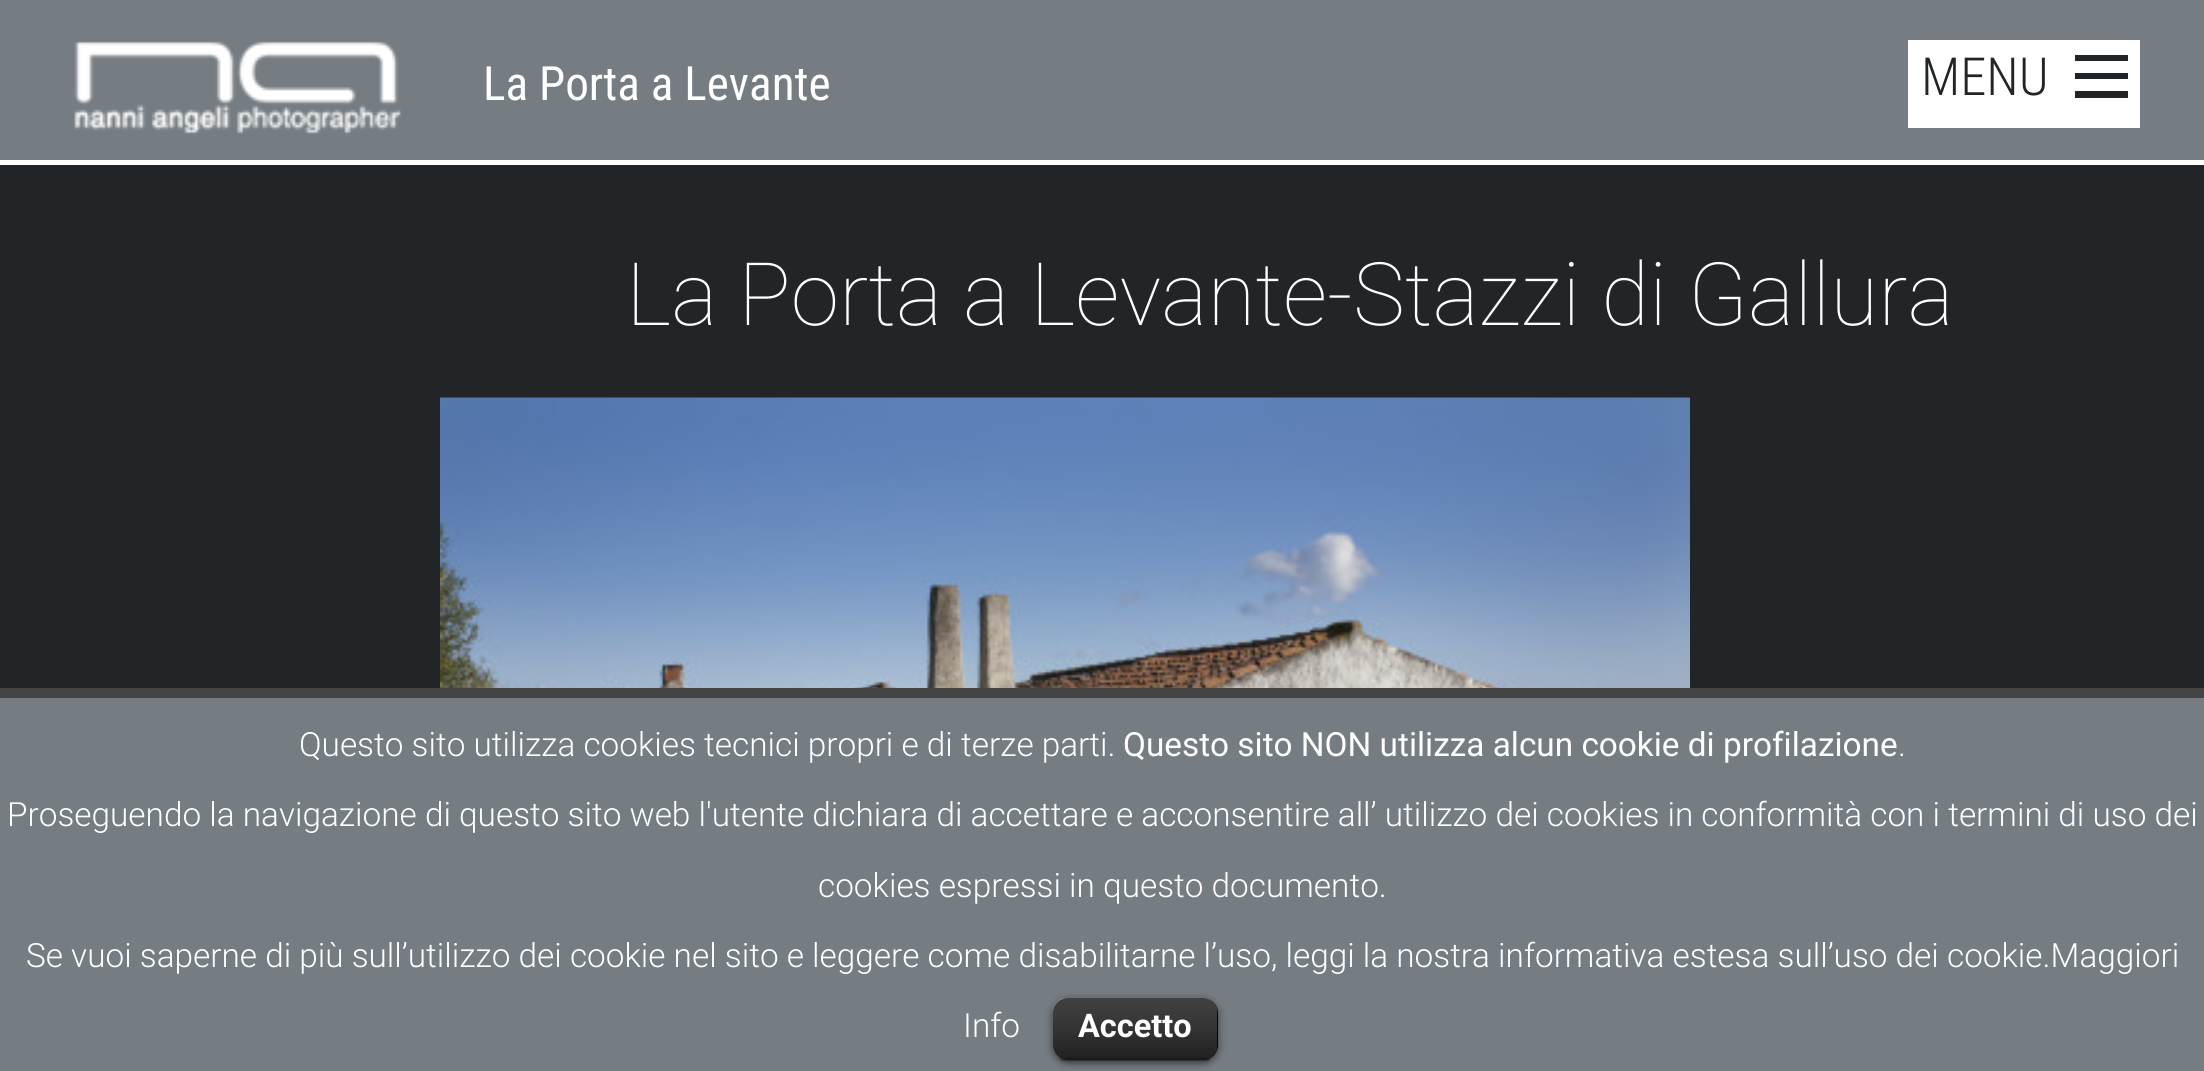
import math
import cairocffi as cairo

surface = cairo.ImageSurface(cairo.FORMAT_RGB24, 2204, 1071)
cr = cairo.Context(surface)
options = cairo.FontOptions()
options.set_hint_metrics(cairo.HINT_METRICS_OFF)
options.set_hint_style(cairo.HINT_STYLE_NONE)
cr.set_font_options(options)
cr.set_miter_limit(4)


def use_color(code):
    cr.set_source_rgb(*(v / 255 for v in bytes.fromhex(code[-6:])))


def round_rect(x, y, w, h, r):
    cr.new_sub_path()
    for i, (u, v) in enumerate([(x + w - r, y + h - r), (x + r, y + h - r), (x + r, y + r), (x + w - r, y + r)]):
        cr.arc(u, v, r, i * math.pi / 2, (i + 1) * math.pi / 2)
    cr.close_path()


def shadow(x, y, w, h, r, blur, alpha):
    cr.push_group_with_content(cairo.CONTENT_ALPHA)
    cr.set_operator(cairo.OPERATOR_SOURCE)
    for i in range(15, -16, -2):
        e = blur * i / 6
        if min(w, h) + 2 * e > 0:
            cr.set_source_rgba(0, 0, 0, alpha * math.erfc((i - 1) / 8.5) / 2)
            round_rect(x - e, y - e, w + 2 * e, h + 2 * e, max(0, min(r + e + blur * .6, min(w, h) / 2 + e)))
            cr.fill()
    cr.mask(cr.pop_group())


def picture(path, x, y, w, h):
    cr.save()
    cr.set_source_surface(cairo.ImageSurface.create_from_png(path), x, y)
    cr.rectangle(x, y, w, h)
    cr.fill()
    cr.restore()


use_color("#222527")
cr.paint()
use_color("#767d82")
cr.rectangle(0, 0, 2204, 160)
cr.fill()
use_color("#ffffff")
cr.rectangle(0, 160, 2204, 5)
cr.fill()
picture("img1.png", 74, 41, 327, 93)
cr.select_font_face("Roboto Condensed")
cr.set_font_size(47.25)
cr.move_to(483, 100)
cr.show_text("La Porta a Levante")
cr.rectangle(1908, 40, 232, 88)
cr.fill()
cr.select_font_face("Roboto Condensed Light")
cr.set_font_size(52.5)
use_color("#222527")
cr.move_to(1921, 95)
cr.show_text("MENU")
cr.new_path()
cr.move_to(2075, 55)
cr.line_to(2128, 55)
cr.line_to(2128, 61)
cr.line_to(2075, 61)
cr.close_path()
cr.move_to(2075, 73)
cr.line_to(2128, 73)
cr.line_to(2128, 79)
cr.line_to(2075, 79)
cr.close_path()
cr.move_to(2075, 91)
cr.line_to(2128, 91)
cr.line_to(2128, 98)
cr.line_to(2075, 98)
cr.close_path()
cr.fill()
cr.select_font_face("Roboto Thin")
cr.set_font_size(87.5)
use_color("#ffffff")
cr.move_to(626, 325)
cr.show_text("La Porta a Levante-Stazzi di Gallura")
picture("img2.png", 440, 397, 1250, 291)
use_color("#767d82")
cr.rectangle(0, 698, 2204, 373)
cr.fill()
use_color("#444444")
cr.rectangle(0, 688, 2204, 10)
cr.fill()
cr.select_font_face("Roboto Light")
cr.set_font_size(33.33)
use_color("#ffffff")
cr.move_to(299, 756)
cr.show_text("Questo sito utilizza cookies tecnici propri e di terze parti.")
cr.select_font_face("Roboto")
cr.move_to(1123, 756)
cr.show_text("Questo sito NON utilizza alcun cookie di profilazione")
cr.select_font_face("Roboto Light")
cr.move_to(1898, 756)
cr.show_text(".")
cr.move_to(7, 826)
cr.show_text("Proseguendo la navigazione di questo sito web l'utente dichiara di accettare e acconsentire all’ utilizzo dei cookies in conformità con i termini di uso dei")
cr.move_to(818, 897)
cr.show_text("cookies espressi in questo documento.")
cr.move_to(26, 967)
cr.show_text("Se vuoi saperne di più sull’utilizzo dei cookie nel sito e leggere come disabilitarne l’uso, leggi la nostra informativa estesa sull’uso dei cookie.Maggiori")
cr.move_to(963, 1037)
cr.show_text("Info")
use_color("#000000")
shadow(1053, 1000, 165, 63, 15, 4, 0.6)
use_color("#000000")
round_rect(1053, 998, 165, 62, 15)
cr.fill()
picture("img3.png", 1052, 997, 166, 63)
cr.set_source_rgba(0, 0, 0, 0.25)
cr.rectangle(1060, 1058, 150, 3)
cr.fill()
cr.select_font_face("Roboto", cairo.FONT_SLANT_NORMAL, cairo.FONT_WEIGHT_BOLD)
cr.set_font_size(32.5)
use_color("#ffffff")
cr.move_to(1078, 1037)
cr.show_text("Accetto")
surface.write_to_png("result.png")
